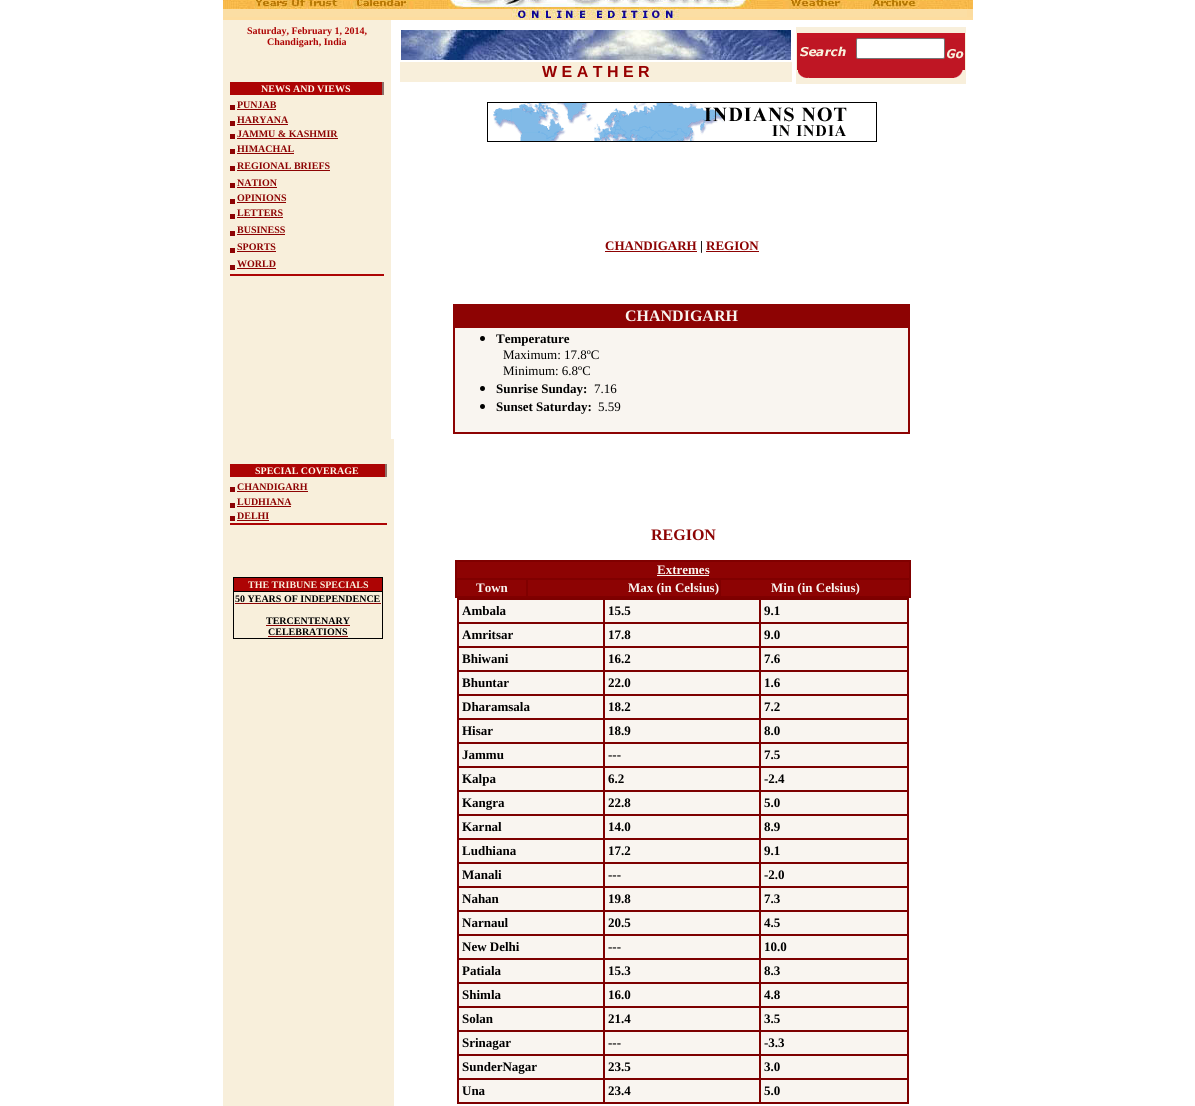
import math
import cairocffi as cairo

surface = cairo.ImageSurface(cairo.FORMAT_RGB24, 1195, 1106)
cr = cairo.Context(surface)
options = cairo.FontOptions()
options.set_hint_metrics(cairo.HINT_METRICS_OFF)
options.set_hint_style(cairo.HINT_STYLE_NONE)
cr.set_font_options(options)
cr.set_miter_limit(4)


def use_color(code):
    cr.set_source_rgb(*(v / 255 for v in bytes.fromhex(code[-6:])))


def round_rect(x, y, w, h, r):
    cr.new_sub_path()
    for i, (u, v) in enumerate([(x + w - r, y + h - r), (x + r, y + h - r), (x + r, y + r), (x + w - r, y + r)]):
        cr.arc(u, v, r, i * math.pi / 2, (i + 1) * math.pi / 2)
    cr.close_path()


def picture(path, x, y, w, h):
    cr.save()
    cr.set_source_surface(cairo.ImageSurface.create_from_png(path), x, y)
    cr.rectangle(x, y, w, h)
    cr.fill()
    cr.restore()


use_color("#ffffff")
cr.paint()
picture("img1.png", 223, 0, 750, 20)
use_color("#f8efdb")
cr.rectangle(223, 20, 168, 419)
cr.fill()
cr.select_font_face("Liberation Serif", cairo.FONT_SLANT_NORMAL, cairo.FONT_WEIGHT_BOLD)
cr.set_font_size(10)
use_color("#ad0404")
cr.move_to(247, 34)
cr.show_text("Saturday, February 1, 2014,")
cr.move_to(267, 45)
cr.show_text("Chandigarh, India")
use_color("#8d7069")
cr.rectangle(382, 82, 2, 13)
cr.fill()
use_color("#ad0404")
cr.rectangle(230, 82, 152, 13)
cr.fill()
use_color("#fff9ea")
cr.move_to(261, 92)
cr.show_text("NEWS AND VIEWS")
use_color("#8d0303")
cr.move_to(237, 108)
cr.show_text("PUNJAB")
cr.rectangle(230, 105, 5, 5)
cr.fill()
cr.rectangle(237, 109, 39, 1)
cr.fill()
cr.move_to(237, 123)
cr.show_text("HARYANA")
cr.rectangle(230, 121, 5, 5)
cr.fill()
cr.rectangle(237, 124, 51, 1)
cr.fill()
cr.move_to(237, 137)
cr.show_text("JAMMU & KASHMIR")
cr.rectangle(230, 134, 5, 5)
cr.fill()
cr.rectangle(237, 138, 101, 1)
cr.fill()
cr.move_to(237, 152)
cr.show_text("HIMACHAL")
cr.rectangle(230, 149, 5, 5)
cr.fill()
cr.rectangle(237, 153, 57, 1)
cr.fill()
cr.rectangle(230, 166, 5, 5)
cr.fill()
cr.move_to(237, 169)
cr.show_text("REGIONAL BRIEFS")
cr.rectangle(237, 170, 93, 1)
cr.fill()
cr.move_to(237, 186)
cr.show_text("NATION")
cr.rectangle(230, 183, 5, 5)
cr.fill()
cr.rectangle(237, 187, 40, 1)
cr.fill()
cr.move_to(237, 201)
cr.show_text("OPINIONS")
cr.rectangle(230, 199, 5, 5)
cr.fill()
cr.rectangle(237, 202, 49, 1)
cr.fill()
cr.rectangle(230, 214, 5, 5)
cr.fill()
cr.move_to(237, 216)
cr.show_text("LETTERS")
cr.rectangle(237, 217, 46, 1)
cr.fill()
cr.move_to(237, 233)
cr.show_text("BUSINESS")
cr.rectangle(230, 231, 5, 5)
cr.fill()
cr.rectangle(237, 234, 48, 1)
cr.fill()
cr.move_to(237, 250)
cr.show_text("SPORTS")
cr.rectangle(230, 248, 5, 5)
cr.fill()
cr.rectangle(237, 251, 39, 1)
cr.fill()
cr.move_to(237, 267)
cr.show_text("WORLD")
cr.rectangle(230, 265, 5, 5)
cr.fill()
cr.rectangle(237, 268, 39, 1)
cr.fill()
use_color("#ad0404")
cr.rectangle(230, 274, 154, 2)
cr.fill()
picture("img2.png", 401, 30, 390, 30)
use_color("#f8efdb")
cr.rectangle(400, 62, 392, 20)
cr.fill()
cr.select_font_face("Liberation Sans", cairo.FONT_SLANT_NORMAL, cairo.FONT_WEIGHT_BOLD)
cr.set_font_size(16)
use_color("#970000")
cr.move_to(542, 77)
cr.show_text("W E A T H E R")
use_color("#f8efdb")
cr.rectangle(796, 27, 170, 57)
cr.fill()
use_color("#c41624")
cr.rectangle(797, 33, 168, 5)
cr.fill()
use_color("#bf1624")
cr.rectangle(797, 38, 168, 32)
cr.fill()
picture("img3.png", 800, 46, 46, 11)
use_color("#ffffff")
round_rect(856.5, 38.5, 88, 20, 1.5)
cr.fill_preserve()
use_color("#767676")
cr.set_line_width(1)
cr.stroke()
picture("img4.png", 947, 49, 17, 10)
picture("img5.png", 798, 70, 165, 8)
picture("img6.png", 487, 102, 390, 40)
cr.select_font_face("Liberation Serif", cairo.FONT_SLANT_NORMAL, cairo.FONT_WEIGHT_BOLD)
cr.set_font_size(13)
use_color("#8d0303")
cr.move_to(605, 250)
cr.show_text("CHANDIGARH")
cr.rectangle(605, 251, 92, 1)
cr.fill()
use_color("#000000")
cr.move_to(700, 250)
cr.show_text("|")
use_color("#8d0303")
cr.move_to(706, 250)
cr.show_text("REGION")
cr.rectangle(706, 251, 53, 1)
cr.fill()
cr.rectangle(453.5, 304.5, 456, 129)
cr.stroke()
cr.rectangle(454, 305, 455, 22)
cr.fill()
cr.set_font_size(16)
use_color("#f9f5f0")
cr.move_to(625, 321)
cr.show_text("CHANDIGARH")
cr.rectangle(454.5, 327.5, 454, 105)
cr.fill_preserve()
use_color("#8d0303")
cr.stroke()
use_color("#000000")
cr.arc(482.5, 338.5, 2.5, 0, 2 * math.pi)
cr.fill()
cr.set_font_size(13)
cr.move_to(496, 343)
cr.show_text("Temperature")
cr.select_font_face("Liberation Serif")
cr.move_to(503, 359)
cr.show_text("Maximum: 17.8ºC")
cr.move_to(503, 375)
cr.show_text("Minimum: 6.8ºC")
cr.new_path()
cr.arc(482.5, 388.5, 2.5, 0, 2 * math.pi)
cr.fill()
cr.select_font_face("Liberation Serif", cairo.FONT_SLANT_NORMAL, cairo.FONT_WEIGHT_BOLD)
cr.move_to(496, 393)
cr.show_text("Sunrise Sunday:")
cr.select_font_face("Liberation Serif")
cr.move_to(594, 393)
cr.show_text("7.16")
cr.new_path()
cr.arc(482.5, 406.5, 2.5, 0, 2 * math.pi)
cr.fill()
cr.select_font_face("Liberation Serif", cairo.FONT_SLANT_NORMAL, cairo.FONT_WEIGHT_BOLD)
cr.move_to(496, 411)
cr.show_text("Sunset Saturday:")
cr.select_font_face("Liberation Serif")
cr.move_to(598, 411)
cr.show_text("5.59")
use_color("#f8efdb")
cr.rectangle(223, 439, 171, 667)
cr.fill()
use_color("#8d7069")
cr.rectangle(385, 464, 2, 13)
cr.fill()
use_color("#ad0404")
cr.rectangle(230, 464, 155, 13)
cr.fill()
cr.select_font_face("Liberation Serif", cairo.FONT_SLANT_NORMAL, cairo.FONT_WEIGHT_BOLD)
cr.set_font_size(10)
use_color("#fff9ea")
cr.move_to(255, 474)
cr.show_text("SPECIAL COVERAGE")
use_color("#8d0303")
cr.move_to(237, 490)
cr.show_text("CHANDIGARH")
cr.rectangle(230, 487, 5, 5)
cr.fill()
cr.rectangle(237, 491, 71, 1)
cr.fill()
cr.rectangle(230, 503, 5, 5)
cr.fill()
cr.move_to(237, 505)
cr.show_text("LUDHIANA")
cr.rectangle(237, 506, 54, 1)
cr.fill()
cr.move_to(237, 519)
cr.show_text("DELHI")
cr.rectangle(230, 516, 5, 5)
cr.fill()
cr.rectangle(237, 520, 32, 1)
cr.fill()
use_color("#ad0404")
cr.rectangle(230, 523, 157, 2)
cr.fill()
use_color("#000000")
cr.rectangle(233, 577, 150, 62)
cr.fill()
use_color("#ad0404")
cr.rectangle(234, 578, 148, 13)
cr.fill()
use_color("#f8efdb")
cr.move_to(248, 588)
cr.show_text("THE TRIBUNE SPECIALS")
cr.rectangle(234, 592, 148, 46)
cr.fill()
use_color("#000000")
cr.move_to(235, 602)
cr.show_text("50 YEARS OF INDEPENDENCE")
use_color("#8d0303")
cr.rectangle(235, 603, 146, 1)
cr.fill()
use_color("#000000")
cr.move_to(266, 624)
cr.show_text("TERCENTENARY")
use_color("#8d0303")
cr.rectangle(266, 625, 84, 1)
cr.fill()
use_color("#000000")
cr.move_to(268, 635)
cr.show_text("CELEBRATIONS")
use_color("#8d0303")
cr.rectangle(268, 636, 80, 1)
cr.fill()
cr.set_font_size(16)
cr.move_to(651, 540)
cr.show_text("REGION")
cr.rectangle(455.5, 560.5, 455, 37)
use_color("#800000")
cr.stroke()
use_color("#8d0303")
cr.rectangle(456.5, 561.5, 453, 17)
cr.fill_preserve()
use_color("#800000")
cr.stroke()
cr.set_font_size(13)
use_color("#f9f5f0")
cr.move_to(657, 574)
cr.show_text("Extremes")
cr.rectangle(657, 575, 52, 1)
cr.fill()
use_color("#8d0303")
cr.rectangle(456.5, 579.5, 70, 17)
cr.fill_preserve()
use_color("#800000")
cr.stroke()
use_color("#f9f5f0")
cr.move_to(476, 592)
cr.show_text("Town")
use_color("#8d0303")
cr.rectangle(527.5, 579.5, 192, 17)
cr.fill_preserve()
use_color("#800000")
cr.stroke()
use_color("#f9f5f0")
cr.move_to(628, 592)
cr.show_text("Max (in Celsius)")
use_color("#8d0303")
cr.rectangle(720.5, 579.5, 189, 17)
cr.fill_preserve()
use_color("#800000")
cr.stroke()
use_color("#f9f5f0")
cr.move_to(771, 592)
cr.show_text("Min (in Celsius)")
cr.rectangle(459, 600, 448, 502)
cr.fill()
cr.rectangle(457.5, 598.5, 451, 505)
use_color("#7d0000")
cr.stroke()
cr.rectangle(458.5, 599.5, 145, 23)
cr.stroke()
use_color("#000000")
cr.move_to(462, 615)
cr.show_text("Ambala")
cr.rectangle(604.5, 599.5, 155, 23)
use_color("#7d0000")
cr.stroke()
use_color("#000000")
cr.move_to(608, 615)
cr.show_text("15.5")
cr.rectangle(760.5, 599.5, 147, 23)
use_color("#7d0000")
cr.stroke()
use_color("#000000")
cr.move_to(764, 615)
cr.show_text("9.1")
cr.rectangle(458.5, 623.5, 145, 23)
use_color("#7d0000")
cr.stroke()
use_color("#000000")
cr.move_to(462, 639)
cr.show_text("Amritsar")
cr.rectangle(604.5, 623.5, 155, 23)
use_color("#7d0000")
cr.stroke()
use_color("#000000")
cr.move_to(608, 639)
cr.show_text("17.8")
cr.rectangle(760.5, 623.5, 147, 23)
use_color("#7d0000")
cr.stroke()
use_color("#000000")
cr.move_to(764, 639)
cr.show_text("9.0")
cr.rectangle(458.5, 647.5, 145, 23)
use_color("#7d0000")
cr.stroke()
use_color("#000000")
cr.move_to(462, 663)
cr.show_text("Bhiwani")
cr.rectangle(604.5, 647.5, 155, 23)
use_color("#7d0000")
cr.stroke()
use_color("#000000")
cr.move_to(608, 663)
cr.show_text("16.2")
cr.rectangle(760.5, 647.5, 147, 23)
use_color("#7d0000")
cr.stroke()
use_color("#000000")
cr.move_to(764, 663)
cr.show_text("7.6")
cr.rectangle(458.5, 671.5, 145, 23)
use_color("#7d0000")
cr.stroke()
use_color("#000000")
cr.move_to(462, 687)
cr.show_text("Bhuntar")
cr.rectangle(604.5, 671.5, 155, 23)
use_color("#7d0000")
cr.stroke()
use_color("#000000")
cr.move_to(608, 687)
cr.show_text("22.0")
cr.rectangle(760.5, 671.5, 147, 23)
use_color("#7d0000")
cr.stroke()
use_color("#000000")
cr.move_to(764, 687)
cr.show_text("1.6")
cr.rectangle(458.5, 695.5, 145, 23)
use_color("#7d0000")
cr.stroke()
use_color("#000000")
cr.move_to(462, 711)
cr.show_text("Dharamsala")
cr.rectangle(604.5, 695.5, 155, 23)
use_color("#7d0000")
cr.stroke()
use_color("#000000")
cr.move_to(608, 711)
cr.show_text("18.2")
cr.rectangle(760.5, 695.5, 147, 23)
use_color("#7d0000")
cr.stroke()
use_color("#000000")
cr.move_to(764, 711)
cr.show_text("7.2")
cr.rectangle(458.5, 719.5, 145, 23)
use_color("#7d0000")
cr.stroke()
use_color("#000000")
cr.move_to(462, 735)
cr.show_text("Hisar")
cr.rectangle(604.5, 719.5, 155, 23)
use_color("#7d0000")
cr.stroke()
use_color("#000000")
cr.move_to(608, 735)
cr.show_text("18.9")
cr.rectangle(760.5, 719.5, 147, 23)
use_color("#7d0000")
cr.stroke()
use_color("#000000")
cr.move_to(764, 735)
cr.show_text("8.0")
cr.rectangle(458.5, 743.5, 145, 23)
use_color("#7d0000")
cr.stroke()
use_color("#000000")
cr.move_to(462, 759)
cr.show_text("Jammu")
cr.rectangle(604.5, 743.5, 155, 23)
use_color("#7d0000")
cr.stroke()
use_color("#000000")
cr.move_to(608, 759)
cr.show_text("---")
cr.rectangle(760.5, 743.5, 147, 23)
use_color("#7d0000")
cr.stroke()
use_color("#000000")
cr.move_to(764, 759)
cr.show_text("7.5")
cr.rectangle(458.5, 767.5, 145, 23)
use_color("#7d0000")
cr.stroke()
use_color("#000000")
cr.move_to(462, 783)
cr.show_text("Kalpa")
cr.rectangle(604.5, 767.5, 155, 23)
use_color("#7d0000")
cr.stroke()
use_color("#000000")
cr.move_to(608, 783)
cr.show_text("6.2")
cr.rectangle(760.5, 767.5, 147, 23)
use_color("#7d0000")
cr.stroke()
use_color("#000000")
cr.move_to(764, 783)
cr.show_text("-2.4")
cr.rectangle(458.5, 791.5, 145, 23)
use_color("#7d0000")
cr.stroke()
use_color("#000000")
cr.move_to(462, 807)
cr.show_text("Kangra")
cr.rectangle(604.5, 791.5, 155, 23)
use_color("#7d0000")
cr.stroke()
use_color("#000000")
cr.move_to(608, 807)
cr.show_text("22.8")
cr.rectangle(760.5, 791.5, 147, 23)
use_color("#7d0000")
cr.stroke()
use_color("#000000")
cr.move_to(764, 807)
cr.show_text("5.0")
cr.rectangle(458.5, 815.5, 145, 23)
use_color("#7d0000")
cr.stroke()
use_color("#000000")
cr.move_to(462, 831)
cr.show_text("Karnal")
cr.rectangle(604.5, 815.5, 155, 23)
use_color("#7d0000")
cr.stroke()
use_color("#000000")
cr.move_to(608, 831)
cr.show_text("14.0")
cr.rectangle(760.5, 815.5, 147, 23)
use_color("#7d0000")
cr.stroke()
use_color("#000000")
cr.move_to(764, 831)
cr.show_text("8.9")
cr.rectangle(458.5, 839.5, 145, 23)
use_color("#7d0000")
cr.stroke()
use_color("#000000")
cr.move_to(462, 855)
cr.show_text("Ludhiana")
cr.rectangle(604.5, 839.5, 155, 23)
use_color("#7d0000")
cr.stroke()
use_color("#000000")
cr.move_to(608, 855)
cr.show_text("17.2")
cr.rectangle(760.5, 839.5, 147, 23)
use_color("#7d0000")
cr.stroke()
use_color("#000000")
cr.move_to(764, 855)
cr.show_text("9.1")
cr.rectangle(458.5, 863.5, 145, 23)
use_color("#7d0000")
cr.stroke()
use_color("#000000")
cr.move_to(462, 879)
cr.show_text("Manali")
cr.rectangle(604.5, 863.5, 155, 23)
use_color("#7d0000")
cr.stroke()
use_color("#000000")
cr.move_to(608, 879)
cr.show_text("---")
cr.rectangle(760.5, 863.5, 147, 23)
use_color("#7d0000")
cr.stroke()
use_color("#000000")
cr.move_to(764, 879)
cr.show_text("-2.0")
cr.rectangle(458.5, 887.5, 145, 23)
use_color("#7d0000")
cr.stroke()
use_color("#000000")
cr.move_to(462, 903)
cr.show_text("Nahan")
cr.rectangle(604.5, 887.5, 155, 23)
use_color("#7d0000")
cr.stroke()
use_color("#000000")
cr.move_to(608, 903)
cr.show_text("19.8")
cr.rectangle(760.5, 887.5, 147, 23)
use_color("#7d0000")
cr.stroke()
use_color("#000000")
cr.move_to(764, 903)
cr.show_text("7.3")
cr.rectangle(458.5, 911.5, 145, 23)
use_color("#7d0000")
cr.stroke()
use_color("#000000")
cr.move_to(462, 927)
cr.show_text("Narnaul")
cr.rectangle(604.5, 911.5, 155, 23)
use_color("#7d0000")
cr.stroke()
use_color("#000000")
cr.move_to(608, 927)
cr.show_text("20.5")
cr.rectangle(760.5, 911.5, 147, 23)
use_color("#7d0000")
cr.stroke()
use_color("#000000")
cr.move_to(764, 927)
cr.show_text("4.5")
cr.rectangle(458.5, 935.5, 145, 23)
use_color("#7d0000")
cr.stroke()
use_color("#000000")
cr.move_to(462, 951)
cr.show_text("New Delhi")
cr.rectangle(604.5, 935.5, 155, 23)
use_color("#7d0000")
cr.stroke()
use_color("#000000")
cr.move_to(608, 951)
cr.show_text("---")
cr.rectangle(760.5, 935.5, 147, 23)
use_color("#7d0000")
cr.stroke()
use_color("#000000")
cr.move_to(764, 951)
cr.show_text("10.0")
cr.rectangle(458.5, 959.5, 145, 23)
use_color("#7d0000")
cr.stroke()
use_color("#000000")
cr.move_to(462, 975)
cr.show_text("Patiala")
cr.rectangle(604.5, 959.5, 155, 23)
use_color("#7d0000")
cr.stroke()
use_color("#000000")
cr.move_to(608, 975)
cr.show_text("15.3")
cr.rectangle(760.5, 959.5, 147, 23)
use_color("#7d0000")
cr.stroke()
use_color("#000000")
cr.move_to(764, 975)
cr.show_text("8.3")
cr.rectangle(458.5, 983.5, 145, 23)
use_color("#7d0000")
cr.stroke()
use_color("#000000")
cr.move_to(462, 999)
cr.show_text("Shimla")
cr.rectangle(604.5, 983.5, 155, 23)
use_color("#7d0000")
cr.stroke()
use_color("#000000")
cr.move_to(608, 999)
cr.show_text("16.0")
cr.rectangle(760.5, 983.5, 147, 23)
use_color("#7d0000")
cr.stroke()
use_color("#000000")
cr.move_to(764, 999)
cr.show_text("4.8")
cr.rectangle(458.5, 1007.5, 145, 23)
use_color("#7d0000")
cr.stroke()
use_color("#000000")
cr.move_to(462, 1023)
cr.show_text("Solan")
cr.rectangle(604.5, 1007.5, 155, 23)
use_color("#7d0000")
cr.stroke()
use_color("#000000")
cr.move_to(608, 1023)
cr.show_text("21.4")
cr.rectangle(760.5, 1007.5, 147, 23)
use_color("#7d0000")
cr.stroke()
use_color("#000000")
cr.move_to(764, 1023)
cr.show_text("3.5")
cr.rectangle(458.5, 1031.5, 145, 23)
use_color("#7d0000")
cr.stroke()
use_color("#000000")
cr.move_to(462, 1047)
cr.show_text("Srinagar")
cr.rectangle(604.5, 1031.5, 155, 23)
use_color("#7d0000")
cr.stroke()
use_color("#000000")
cr.move_to(608, 1047)
cr.show_text("---")
cr.rectangle(760.5, 1031.5, 147, 23)
use_color("#7d0000")
cr.stroke()
use_color("#000000")
cr.move_to(764, 1047)
cr.show_text("-3.3")
cr.rectangle(458.5, 1055.5, 145, 23)
use_color("#7d0000")
cr.stroke()
use_color("#000000")
cr.move_to(462, 1071)
cr.show_text("SunderNagar")
cr.rectangle(604.5, 1055.5, 155, 23)
use_color("#7d0000")
cr.stroke()
use_color("#000000")
cr.move_to(608, 1071)
cr.show_text("23.5")
cr.rectangle(760.5, 1055.5, 147, 23)
use_color("#7d0000")
cr.stroke()
use_color("#000000")
cr.move_to(764, 1071)
cr.show_text("3.0")
cr.rectangle(458.5, 1079.5, 145, 23)
use_color("#7d0000")
cr.stroke()
use_color("#000000")
cr.move_to(462, 1095)
cr.show_text("Una")
cr.rectangle(604.5, 1079.5, 155, 23)
use_color("#7d0000")
cr.stroke()
use_color("#000000")
cr.move_to(608, 1095)
cr.show_text("23.4")
cr.rectangle(760.5, 1079.5, 147, 23)
use_color("#7d0000")
cr.stroke()
use_color("#000000")
cr.move_to(764, 1095)
cr.show_text("5.0")
surface.write_to_png("result.png")
